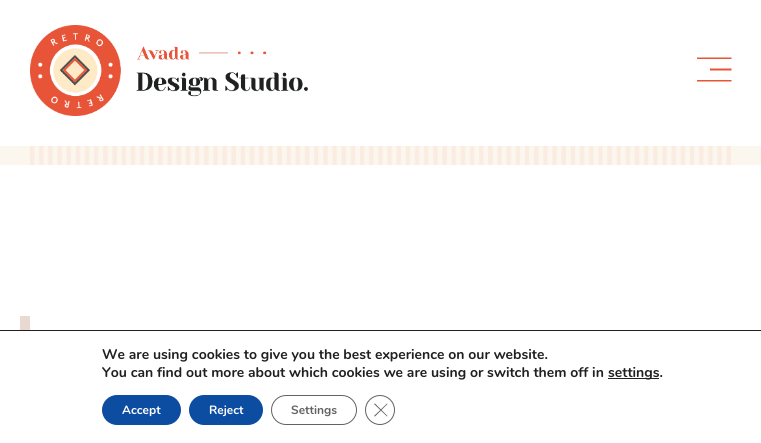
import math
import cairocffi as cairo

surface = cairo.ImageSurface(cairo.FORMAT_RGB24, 761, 443)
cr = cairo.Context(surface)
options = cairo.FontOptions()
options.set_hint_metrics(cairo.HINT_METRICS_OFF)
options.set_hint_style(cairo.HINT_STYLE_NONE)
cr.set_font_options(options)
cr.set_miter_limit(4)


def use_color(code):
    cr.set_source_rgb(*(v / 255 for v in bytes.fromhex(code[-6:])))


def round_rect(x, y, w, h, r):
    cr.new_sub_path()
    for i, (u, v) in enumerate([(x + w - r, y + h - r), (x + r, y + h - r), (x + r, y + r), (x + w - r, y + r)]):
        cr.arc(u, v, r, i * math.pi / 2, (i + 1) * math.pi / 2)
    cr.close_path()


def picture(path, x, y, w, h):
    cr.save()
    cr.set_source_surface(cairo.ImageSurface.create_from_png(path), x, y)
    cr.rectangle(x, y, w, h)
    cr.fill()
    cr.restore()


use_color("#ffffff")
cr.paint()
picture("img1.png", 30, 25, 278, 91)
use_color("#e75438")
cr.new_path()
cr.move_to(697, 57.5)
cr.line_to(731.5, 57.5)
cr.line_to(731.5, 59)
cr.line_to(697, 59)
cr.close_path()
cr.move_to(710, 68.5)
cr.line_to(731.5, 68.5)
cr.line_to(731.5, 70.5)
cr.line_to(710, 70.5)
cr.close_path()
cr.move_to(697, 80)
cr.line_to(731.5, 80)
cr.line_to(731.5, 81.5)
cr.line_to(697, 81.5)
cr.close_path()
cr.fill()
use_color("#fcf7ee")
cr.rectangle(0, 146, 761, 19)
cr.fill()
picture("img2.png", 30, 146, 701, 19)
use_color("#e9d9d1")
cr.new_path()
cr.move_to(20, 316)
cr.line_to(20, 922)
cr.line_to(721, 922)
cr.line_to(721, 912)
cr.line_to(30, 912)
cr.line_to(30, 316)
cr.close_path()
cr.fill()
use_color("#ffffff")
cr.rectangle(20, 331, 10, 112)
cr.fill()
use_color("#202020")
cr.rectangle(0, 330, 761, 1)
cr.fill()
cr.select_font_face("Nunito", cairo.FONT_SLANT_NORMAL, cairo.FONT_WEIGHT_BOLD)
cr.set_font_size(14)
cr.move_to(102, 359)
cr.show_text("We are using cookies to give you the best experience on our website.")
cr.move_to(102, 377)
cr.show_text("You can find out more about which cookies we are using or switch them off in")
cr.rectangle(608, 378, 51, 1)
cr.fill()
cr.move_to(608, 377)
cr.show_text("settings.")
use_color("#0c4da2")
round_rect(102, 395, 79, 30, 15)
cr.fill()
cr.set_font_size(12)
use_color("#ffffff")
cr.move_to(122, 414)
cr.show_text("Accept")
use_color("#0c4da2")
round_rect(189, 395, 74, 30, 15)
cr.fill()
use_color("#ffffff")
cr.move_to(209, 414)
cr.show_text("Reject")
round_rect(271.5, 395.5, 85, 29, 14.5)
use_color("#636363")
cr.set_line_width(1)
cr.stroke()
cr.move_to(291, 414)
cr.show_text("Settings")
cr.new_path()
cr.arc(380, 410, 14.5, 0, 2 * math.pi)
use_color("#626262")
cr.stroke()
cr.new_path()
cr.move_to(387, 403.5)
cr.line_to(387.5, 404)
cr.line_to(375, 416.5)
cr.line_to(374, 416)
cr.close_path()
cr.fill()
cr.new_path()
cr.move_to(374, 404)
cr.line_to(375, 403.5)
cr.line_to(387.5, 416)
cr.line_to(387, 416.5)
cr.close_path()
cr.fill()
surface.write_to_png("result.png")
